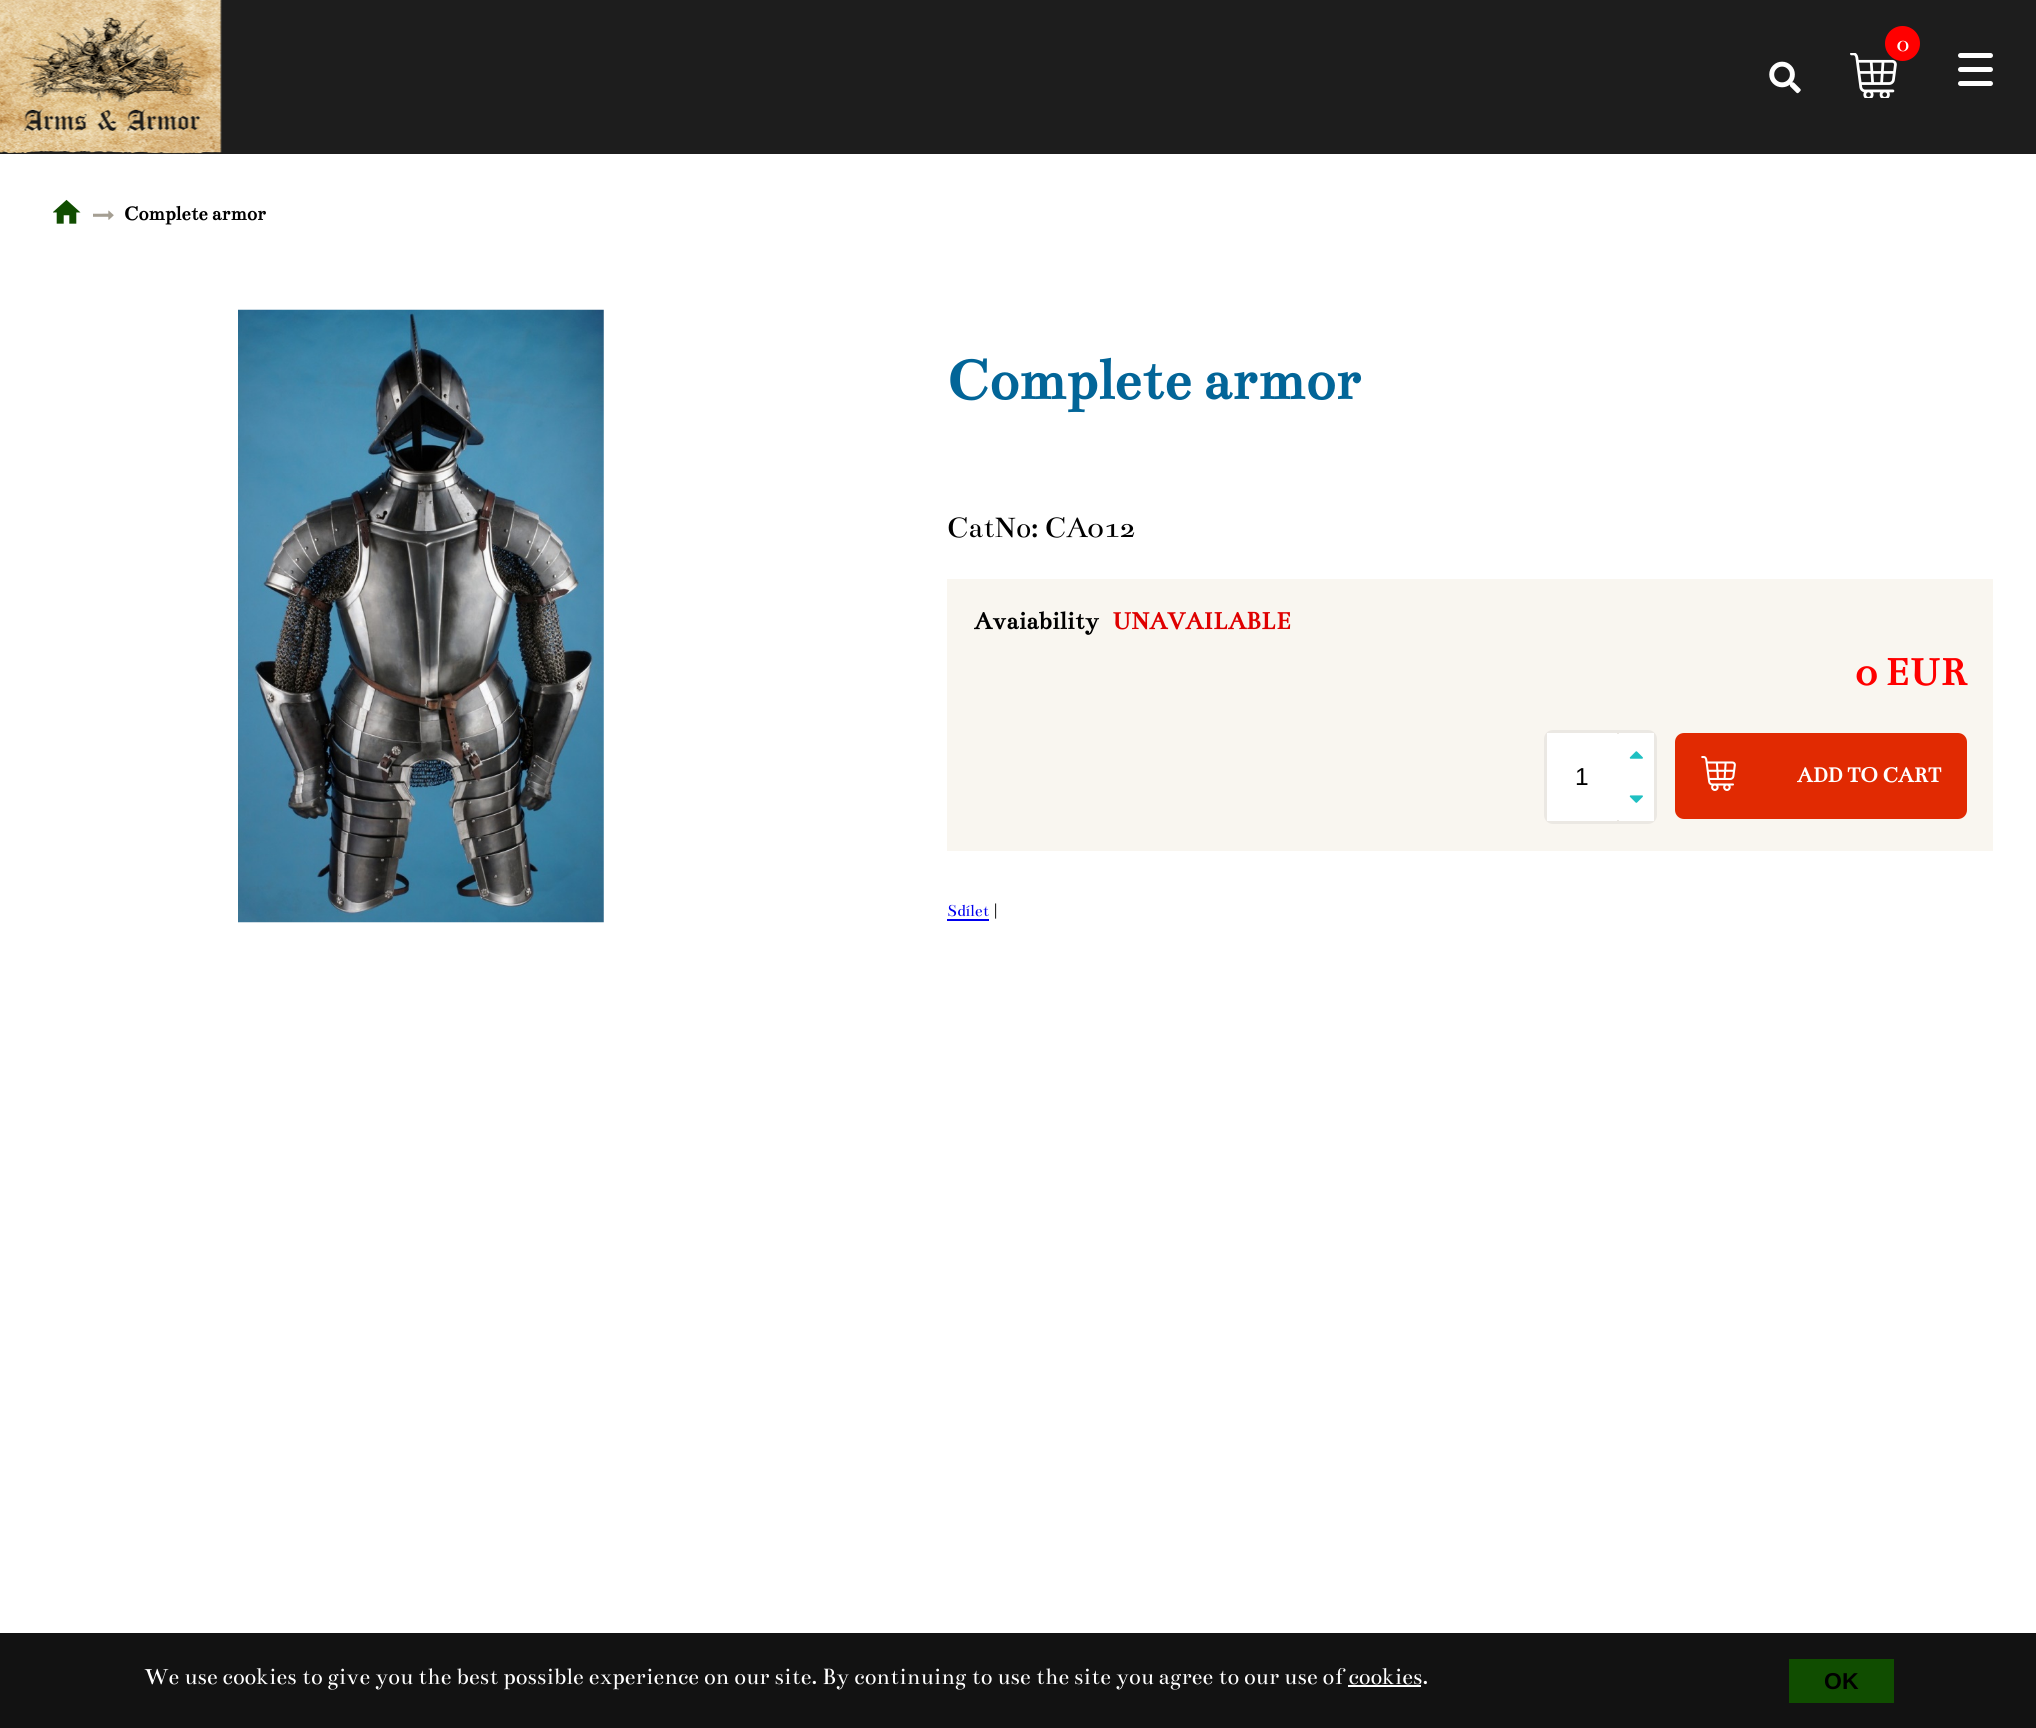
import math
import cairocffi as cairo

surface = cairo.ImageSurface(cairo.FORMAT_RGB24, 2036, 1728)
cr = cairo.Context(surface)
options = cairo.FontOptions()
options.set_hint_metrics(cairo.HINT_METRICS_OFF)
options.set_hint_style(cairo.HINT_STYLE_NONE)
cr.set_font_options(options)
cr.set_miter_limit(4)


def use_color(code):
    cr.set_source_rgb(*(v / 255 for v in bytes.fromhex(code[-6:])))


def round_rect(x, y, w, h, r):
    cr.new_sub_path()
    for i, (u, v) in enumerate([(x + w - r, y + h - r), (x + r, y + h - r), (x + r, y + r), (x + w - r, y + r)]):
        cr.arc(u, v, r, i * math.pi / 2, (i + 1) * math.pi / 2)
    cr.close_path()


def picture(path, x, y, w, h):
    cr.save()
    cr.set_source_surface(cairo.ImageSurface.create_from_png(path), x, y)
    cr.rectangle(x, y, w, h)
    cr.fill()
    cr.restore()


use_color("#ffffff")
cr.paint()
use_color("#1d1d1d")
cr.rectangle(0, 0, 2036, 154)
cr.fill()
picture("img1.png", 0, 0, 222, 154)
picture("img2.png", 1850, 53, 47, 45)
use_color("#ff0000")
cr.arc(1902.5, 43.5, 17.5, 0, 2 * math.pi)
cr.fill()
cr.select_font_face("Bentham")
cr.set_font_size(24.5)
use_color("#ffffff")
cr.move_to(1897, 51)
cr.show_text("0")
picture("img3.png", 1769, 61, 32, 33)
round_rect(1958, 53, 35, 5, 2.5)
cr.fill()
round_rect(1958, 67, 35, 5, 2.5)
cr.fill()
round_rect(1958, 81, 35, 5, 2.5)
cr.fill()
picture("img4.png", 53, 199, 28, 25)
picture("img5.png", 93, 210, 21, 10)
cr.select_font_face("Bentham", cairo.FONT_SLANT_NORMAL, cairo.FONT_WEIGHT_BOLD)
cr.set_font_size(21)
use_color("#000000")
cr.move_to(124, 220)
cr.show_text("Complete armor")
picture("img6.png", 238, 309, 366, 614)
cr.set_font_size(61.25)
use_color("#026598")
cr.move_to(947, 399)
cr.show_text("Complete armor")
cr.select_font_face("Bentham")
cr.set_font_size(31.5)
use_color("#000000")
cr.move_to(947, 537)
cr.show_text("CatNo: CA012")
use_color("#f9f6f0")
cr.rectangle(947, 579, 1046, 272)
cr.fill()
cr.select_font_face("Bentham", cairo.FONT_SLANT_NORMAL, cairo.FONT_WEIGHT_BOLD)
cr.set_font_size(26.25)
use_color("#000000")
cr.move_to(974, 629)
cr.show_text("Avaiability")
use_color("#df0000")
cr.move_to(1112, 629)
cr.show_text("UNAVAILABLE")
cr.set_font_size(42)
use_color("#ff0000")
cr.move_to(1856, 685)
cr.show_text("0 EUR")
use_color("#ffffff")
round_rect(1546, 732, 109, 90, 7)
cr.fill_preserve()
use_color("#ebe8e3")
cr.set_line_width(4)
cr.stroke()
use_color("#ffffff")
cr.rectangle(1547, 733, 70, 88)
cr.fill()
cr.select_font_face("Liberation Sans")
cr.set_font_size(24.5)
use_color("#000000")
cr.move_to(1575, 785)
cr.show_text("1")
use_color("#ffffff")
cr.rectangle(1619, 733, 35, 88)
cr.fill()
picture("img7.png", 1629, 751, 14, 8)
picture("img8.png", 1629, 795, 14, 8)
use_color("#e12a02")
round_rect(1675, 733, 292, 86, 9)
cr.fill()
picture("img9.png", 1701, 756, 35, 35)
cr.select_font_face("Bentham", cairo.FONT_SLANT_NORMAL, cairo.FONT_WEIGHT_BOLD)
cr.set_font_size(22.75)
use_color("#ffffff")
cr.move_to(1797, 782)
cr.show_text("ADD TO CART")
cr.select_font_face("Bentham")
cr.set_font_size(17.5)
use_color("#0000ee")
cr.move_to(947, 916)
cr.show_text("Sdílet")
cr.rectangle(947, 919, 42, 2)
cr.fill()
use_color("#000000")
cr.move_to(993, 916)
cr.show_text("|")
use_color("#121212")
cr.rectangle(0, 1633, 2036, 95)
cr.fill()
cr.set_font_size(24.5)
use_color("#ffffff")
cr.move_to(144, 1684)
cr.show_text("We use cookies to give you the best possible experience on our site. By continuing to use the site you agree to our use of cookies.")
cr.rectangle(1348, 1685, 73, 2)
cr.fill()
use_color("#104d00")
cr.rectangle(1789, 1659, 105, 44)
cr.fill()
cr.select_font_face("Liberation Sans", cairo.FONT_SLANT_NORMAL, cairo.FONT_WEIGHT_BOLD)
cr.set_font_size(23)
use_color("#000000")
cr.move_to(1824, 1689)
cr.show_text("OK")
surface.write_to_png("result.png")
